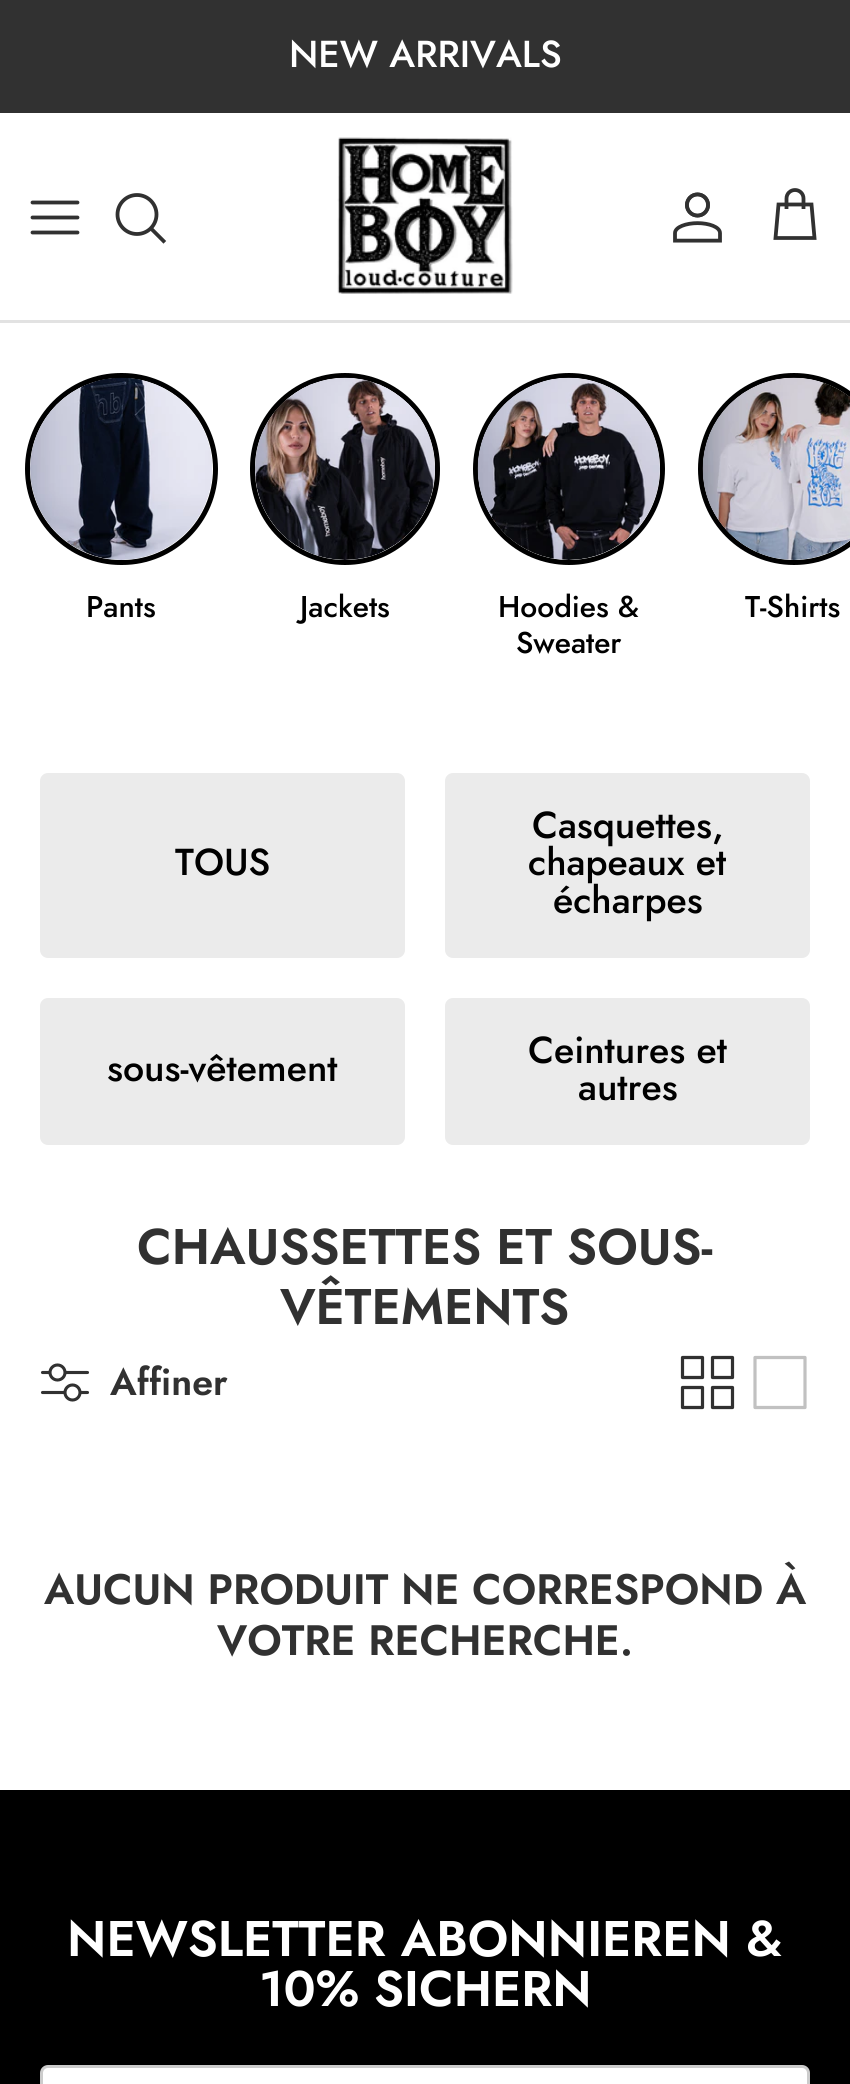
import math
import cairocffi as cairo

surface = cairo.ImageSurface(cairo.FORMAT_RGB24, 850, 2084)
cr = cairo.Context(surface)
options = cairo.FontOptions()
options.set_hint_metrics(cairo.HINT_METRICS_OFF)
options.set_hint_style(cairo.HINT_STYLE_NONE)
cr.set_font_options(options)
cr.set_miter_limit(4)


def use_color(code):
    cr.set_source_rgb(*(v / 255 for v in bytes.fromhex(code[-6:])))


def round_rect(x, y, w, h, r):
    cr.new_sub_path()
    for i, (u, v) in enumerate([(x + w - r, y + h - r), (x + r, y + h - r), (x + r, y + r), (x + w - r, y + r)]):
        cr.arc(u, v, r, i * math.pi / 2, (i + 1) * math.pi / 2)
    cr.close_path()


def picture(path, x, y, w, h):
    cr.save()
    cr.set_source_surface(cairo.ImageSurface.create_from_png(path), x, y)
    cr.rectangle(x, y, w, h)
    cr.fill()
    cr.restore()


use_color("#ffffff")
cr.paint()
use_color("#313131")
cr.rectangle(0, 0, 850, 113)
cr.fill()
cr.select_font_face("Jost Medium")
cr.set_font_size(37.5)
use_color("#ffffff")
cr.move_to(289, 67)
cr.show_text("NEW ARRIVALS")
use_color("#e2e2e2")
cr.rectangle(0, 320, 850, 3)
cr.fill()
cr.new_path()
cr.move_to(32.5, 217.5)
cr.line_to(77.5, 217.5)
cr.move_to(32.5, 202.5)
cr.line_to(77.5, 202.5)
cr.move_to(32.5, 232.5)
cr.line_to(77.5, 232.5)
use_color("#313131")
cr.set_line_width(3.8)
cr.set_line_cap(cairo.LINE_CAP_ROUND)
cr.set_line_join(cairo.LINE_JOIN_ROUND)
cr.stroke()
cr.arc(137, 214.5, 19.5, 0, 2 * math.pi)
cr.set_line_cap(cairo.LINE_CAP_BUTT)
cr.set_line_join(cairo.LINE_JOIN_MITER)
cr.stroke()
cr.new_path()
cr.move_to(152.5, 230)
cr.line_to(163.5, 241)
cr.set_line_cap(cairo.LINE_CAP_SQUARE)
cr.stroke()
picture("img1.png", 337, 137, 176, 157)
picture("img2.png", 673, 192, 49, 51)
cr.new_path()
cr.move_to(803.5, 209)
cr.line_to(803.5, 198.5)
cr.curve_to(803.5, 193.5, 799.5, 190, 795, 190)
cr.curve_to(790.5, 190, 786.5, 193.5, 786.5, 198.5)
cr.line_to(786.5, 209)
cr.move_to(778.5, 204.5)
cr.line_to(811.5, 204.5)
cr.line_to(814.5, 238)
cr.line_to(775.5, 238)
cr.close_path()
cr.set_line_cap(cairo.LINE_CAP_BUTT)
cr.stroke()
round_rect(27.5, 375.5, 188, 187, 93.5)
use_color("#000000")
cr.set_line_width(5)
cr.stroke()
picture("img3.png", 30, 377, 182, 183)
cr.set_font_size(30)
cr.move_to(86, 617)
cr.show_text("Pants")
round_rect(252.5, 375.5, 185, 187, 92.5)
cr.stroke()
picture("img4.png", 255, 377, 180, 183)
cr.move_to(300, 617)
cr.show_text("Jackets")
cr.new_path()
cr.arc(569, 469, 93.5, 0, 2 * math.pi)
cr.stroke()
picture("img5.png", 477, 377, 183, 183)
cr.move_to(498, 617)
cr.show_text("Hoodies &")
cr.move_to(516, 653)
cr.show_text("Sweater")
cr.new_path()
cr.arc(794, 469, 93.5, 0, 2 * math.pi)
cr.stroke()
picture("img6.png", 702, 377, 148, 183)
cr.move_to(745, 617)
cr.show_text("T-Shirts")
use_color("#ebebeb")
round_rect(41.5, 774.5, 362, 182, 6.5)
cr.fill_preserve()
cr.set_line_width(3)
cr.stroke()
cr.set_font_size(37.5)
use_color("#000000")
cr.move_to(175, 875)
cr.show_text("TOUS")
use_color("#ebebeb")
round_rect(446.5, 774.5, 362, 182, 6.5)
cr.fill_preserve()
cr.stroke()
use_color("#000000")
cr.move_to(532, 838)
cr.show_text("Casquettes,")
cr.move_to(528, 875)
cr.show_text("chapeaux et")
cr.move_to(553, 913)
cr.show_text("écharpes")
use_color("#ebebeb")
round_rect(41.5, 999.5, 362, 144, 6.5)
cr.fill_preserve()
cr.stroke()
use_color("#000000")
cr.move_to(107, 1081)
cr.show_text("sous-vêtement")
use_color("#ebebeb")
round_rect(446.5, 999.5, 362, 144, 6.5)
cr.fill_preserve()
cr.stroke()
use_color("#000000")
cr.move_to(528, 1063)
cr.show_text("Ceintures et")
cr.move_to(578, 1100)
cr.show_text("autres")
cr.select_font_face("Jost SemiBold")
cr.set_font_size(50)
use_color("#313131")
cr.move_to(137, 1264)
cr.show_text("CHAUSSETTES ET SOUS-")
cr.move_to(280, 1324)
cr.show_text("VÊTEMENTS")
cr.new_path()
cr.move_to(42.5, 1372.5)
cr.line_to(87.5, 1372.5)
cr.move_to(42.5, 1392.5)
cr.line_to(87.5, 1392.5)
cr.set_line_width(3.1)
cr.set_line_cap(cairo.LINE_CAP_ROUND)
cr.set_line_join(cairo.LINE_JOIN_ROUND)
cr.stroke()
use_color("#ffffff")
cr.arc(57.5, 1372.5, 7.5, 0, 2 * math.pi)
cr.fill_preserve()
use_color("#313131")
cr.set_line_cap(cairo.LINE_CAP_BUTT)
cr.set_line_join(cairo.LINE_JOIN_MITER)
cr.stroke()
use_color("#ffffff")
cr.arc(72.5, 1392.5, 7.5, 0, 2 * math.pi)
cr.fill_preserve()
use_color("#313131")
cr.stroke()
cr.set_font_size(37.5)
cr.move_to(110, 1395)
cr.show_text("Affiner")
picture("img7.png", 680, 1355, 55, 55)
cr.new_path()
cr.move_to(755, 1357.5)
cr.line_to(805, 1357.5)
cr.line_to(805, 1407.5)
cr.line_to(755, 1407.5)
cr.line_to(755, 1357.5)
use_color("#c1c1c1")
cr.set_line_width(3.2)
cr.set_line_cap(cairo.LINE_CAP_ROUND)
cr.set_line_join(cairo.LINE_JOIN_ROUND)
cr.stroke()
cr.set_font_size(42.5)
use_color("#313131")
cr.move_to(44, 1604)
cr.show_text("AUCUN PRODUIT NE CORRESPOND À")
cr.move_to(217, 1655)
cr.show_text("VOTRE RECHERCHE.")
use_color("#000000")
cr.rectangle(0, 1790, 850, 294)
cr.fill()
cr.set_font_size(50)
use_color("#ffffff")
cr.move_to(67, 1956)
cr.show_text("NEWSLETTER ABONNIEREN &")
cr.move_to(259, 2006)
cr.show_text("10% SICHERN")
round_rect(41.5, 2066.5, 767, 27, 6.5)
cr.fill_preserve()
use_color("#cccccc")
cr.set_line_width(3)
cr.set_line_cap(cairo.LINE_CAP_BUTT)
cr.set_line_join(cairo.LINE_JOIN_MITER)
cr.stroke()
surface.write_to_png("result.png")
